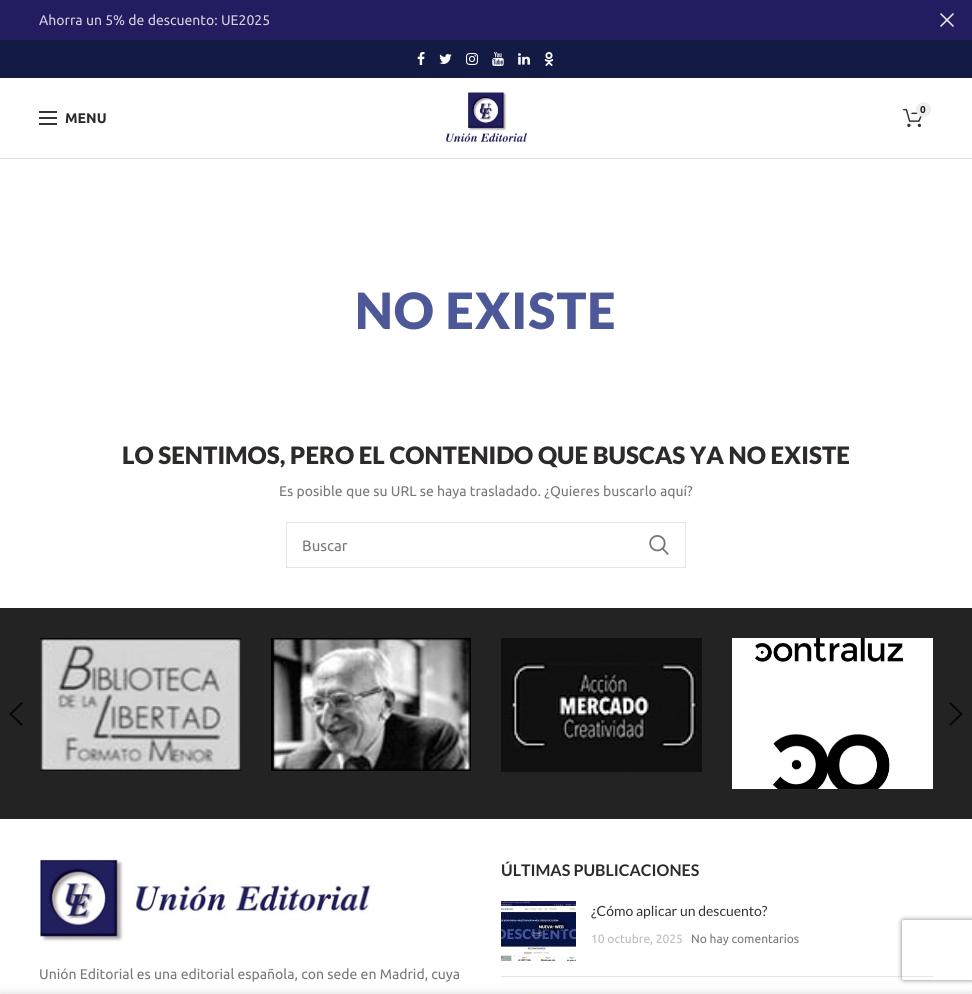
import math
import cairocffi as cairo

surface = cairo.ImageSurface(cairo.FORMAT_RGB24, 972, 994)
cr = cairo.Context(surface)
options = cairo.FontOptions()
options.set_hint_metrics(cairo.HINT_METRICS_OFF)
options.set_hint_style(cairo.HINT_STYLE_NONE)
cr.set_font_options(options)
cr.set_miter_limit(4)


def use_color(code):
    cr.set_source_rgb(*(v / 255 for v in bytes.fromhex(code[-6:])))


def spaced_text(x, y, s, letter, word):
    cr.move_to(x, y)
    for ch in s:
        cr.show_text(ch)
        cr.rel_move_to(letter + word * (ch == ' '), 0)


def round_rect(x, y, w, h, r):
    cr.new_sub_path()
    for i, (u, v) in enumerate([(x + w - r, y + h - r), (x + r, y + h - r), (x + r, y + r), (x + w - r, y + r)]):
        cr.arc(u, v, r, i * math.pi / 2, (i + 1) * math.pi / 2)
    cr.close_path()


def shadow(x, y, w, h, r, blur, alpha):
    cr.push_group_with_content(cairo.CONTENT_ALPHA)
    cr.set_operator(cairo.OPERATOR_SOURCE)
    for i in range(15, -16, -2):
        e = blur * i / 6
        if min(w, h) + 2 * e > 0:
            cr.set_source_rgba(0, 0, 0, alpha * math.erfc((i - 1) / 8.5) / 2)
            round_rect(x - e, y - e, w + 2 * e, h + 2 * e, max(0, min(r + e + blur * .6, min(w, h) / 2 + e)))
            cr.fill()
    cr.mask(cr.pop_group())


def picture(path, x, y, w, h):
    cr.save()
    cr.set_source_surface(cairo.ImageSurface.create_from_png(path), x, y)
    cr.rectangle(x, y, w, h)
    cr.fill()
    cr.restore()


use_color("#ffffff")
cr.paint()
use_color("#211d60")
cr.rectangle(0, 0, 972, 40)
cr.fill()
cr.select_font_face("Ubuntu")
cr.set_font_size(14)
use_color("#d3d2df")
cr.move_to(39, 25)
cr.show_text("Ahorra un 5% de descuento: UE2025")
picture("img1.png", 940, 13, 14, 14)
use_color("#131b45")
cr.rectangle(0, 40, 972, 38)
cr.fill()
picture("img2.png", 417, 52, 8, 13)
picture("img3.png", 439, 54, 13, 10)
picture("img4.png", 466, 53, 12, 12)
picture("img5.png", 492, 52, 12, 14)
picture("img6.png", 518, 53, 12, 12)
picture("img7.png", 544, 52, 10, 14)
use_color("#e0e0e0")
cr.rectangle(0, 158, 972, 1)
cr.fill()
picture("img8.png", 446, 92, 82, 51)
picture("img9.png", 903, 108, 19, 20)
use_color("#eeeeee")
cr.arc(923.5, 109.5, 7.5, 0, 2 * math.pi)
cr.fill()
cr.select_font_face("Ubuntu", cairo.FONT_SLANT_NORMAL, cairo.FONT_WEIGHT_BOLD)
cr.set_font_size(10)
use_color("#212121")
cr.move_to(920, 113)
cr.show_text("0")
use_color("#333333")
cr.rectangle(39, 117, 18, 2)
cr.fill()
cr.rectangle(39, 111, 18, 2)
cr.fill()
cr.rectangle(39, 123, 18, 2)
cr.fill()
cr.set_font_size(14)
use_color("#2d2a2a")
cr.move_to(65, 123)
cr.show_text("MENU")
cr.select_font_face("Lato Black")
cr.set_font_size(50)
use_color("#4c5897")
spaced_text(355, 329, "NO EXISTE", 1, 0)
cr.set_font_size(24)
use_color("#2d2a2a")
cr.move_to(122, 464)
cr.show_text("LO SENTIMOS, PERO EL CONTENIDO QUE BUSCAS YA NO EXISTE")
cr.select_font_face("Ubuntu")
cr.set_font_size(14)
use_color("#777777")
cr.move_to(279, 496)
cr.show_text("Es posible que su URL se haya trasladado. ¿Quieres buscarlo aquí?")
cr.rectangle(286.5, 522.5, 399, 45)
use_color("#e6e6e6")
cr.set_line_width(1)
cr.stroke()
cr.set_font_size(15)
use_color("#777777")
cr.move_to(302, 551)
cr.show_text("Buscar")
picture("img10.png", 649, 535, 20, 20)
use_color("#232323")
cr.rectangle(0, 608, 972, 211)
cr.fill()
picture("img11.png", 40, 638, 201, 133)
picture("img12.png", 271, 638, 200, 133)
picture("img13.png", 501, 638, 201, 134)
picture("img14.png", 732, 638, 201, 151)
use_color("#070707")
cr.new_path()
cr.move_to(23, 703.5)
cr.line_to(21.5, 702)
cr.line_to(9, 714)
cr.line_to(21.5, 726)
cr.line_to(23, 724.5)
cr.line_to(12, 714)
cr.close_path()
cr.fill()
cr.new_path()
cr.move_to(950.5, 702)
cr.line_to(949, 703.5)
cr.line_to(960, 714)
cr.line_to(949, 724.5)
cr.line_to(950.5, 726)
cr.line_to(963, 714)
cr.close_path()
cr.fill()
cr.select_font_face("Lato", cairo.FONT_SLANT_NORMAL, cairo.FONT_WEIGHT_BOLD)
cr.set_font_size(16)
use_color("#2d2a2a")
cr.move_to(501, 876)
cr.show_text("ÚLTIMAS PUBLICACIONES")
use_color("#e6e6e6")
cr.rectangle(501, 976, 432, 1)
cr.fill()
picture("img15.png", 501, 901, 75, 60)
cr.select_font_face("Lato")
cr.set_font_size(14)
use_color("#333333")
cr.move_to(591, 916)
cr.show_text("¿Cómo aplicar un descuento?")
cr.select_font_face("Ubuntu")
cr.set_font_size(12)
use_color("#bbbbbb")
cr.move_to(591, 943)
cr.show_text("10 octubre, 2025")
use_color("#777777")
cr.move_to(691, 943)
cr.show_text("No hay comentarios")
picture("img16.png", 527, 992, 26, 2)
picture("img17.png", 39, 859, 332, 83)
cr.set_font_size(14)
cr.move_to(39, 979)
cr.show_text("Unión Editorial es una editorial española, con sede en Madrid, cuya")
cr.save()
cr.set_fill_rule(cairo.FILL_RULE_EVEN_ODD)
cr.new_path()
cr.move_to(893, 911)
cr.line_to(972, 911)
cr.line_to(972, 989)
cr.line_to(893, 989)
cr.close_path()
cr.move_to(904, 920)
cr.line_to(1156, 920)
cr.curve_to(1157, 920, 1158, 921, 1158, 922)
cr.line_to(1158, 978)
cr.curve_to(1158, 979, 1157, 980, 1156, 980)
cr.line_to(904, 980)
cr.curve_to(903, 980, 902, 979, 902, 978)
cr.line_to(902, 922)
cr.curve_to(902, 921, 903, 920, 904, 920)
cr.close_path()
cr.clip()
use_color("#808080")
shadow(902, 920, 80, 60, 2, 2.5, 1)
cr.restore()
use_color("#ffffff")
round_rect(960, 942, 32, 40, 20)
cr.fill()
use_color("#000000")
shadow(0, 994, 972, 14, 0, 4.5, 0.14)
surface.write_to_png("result.png")
